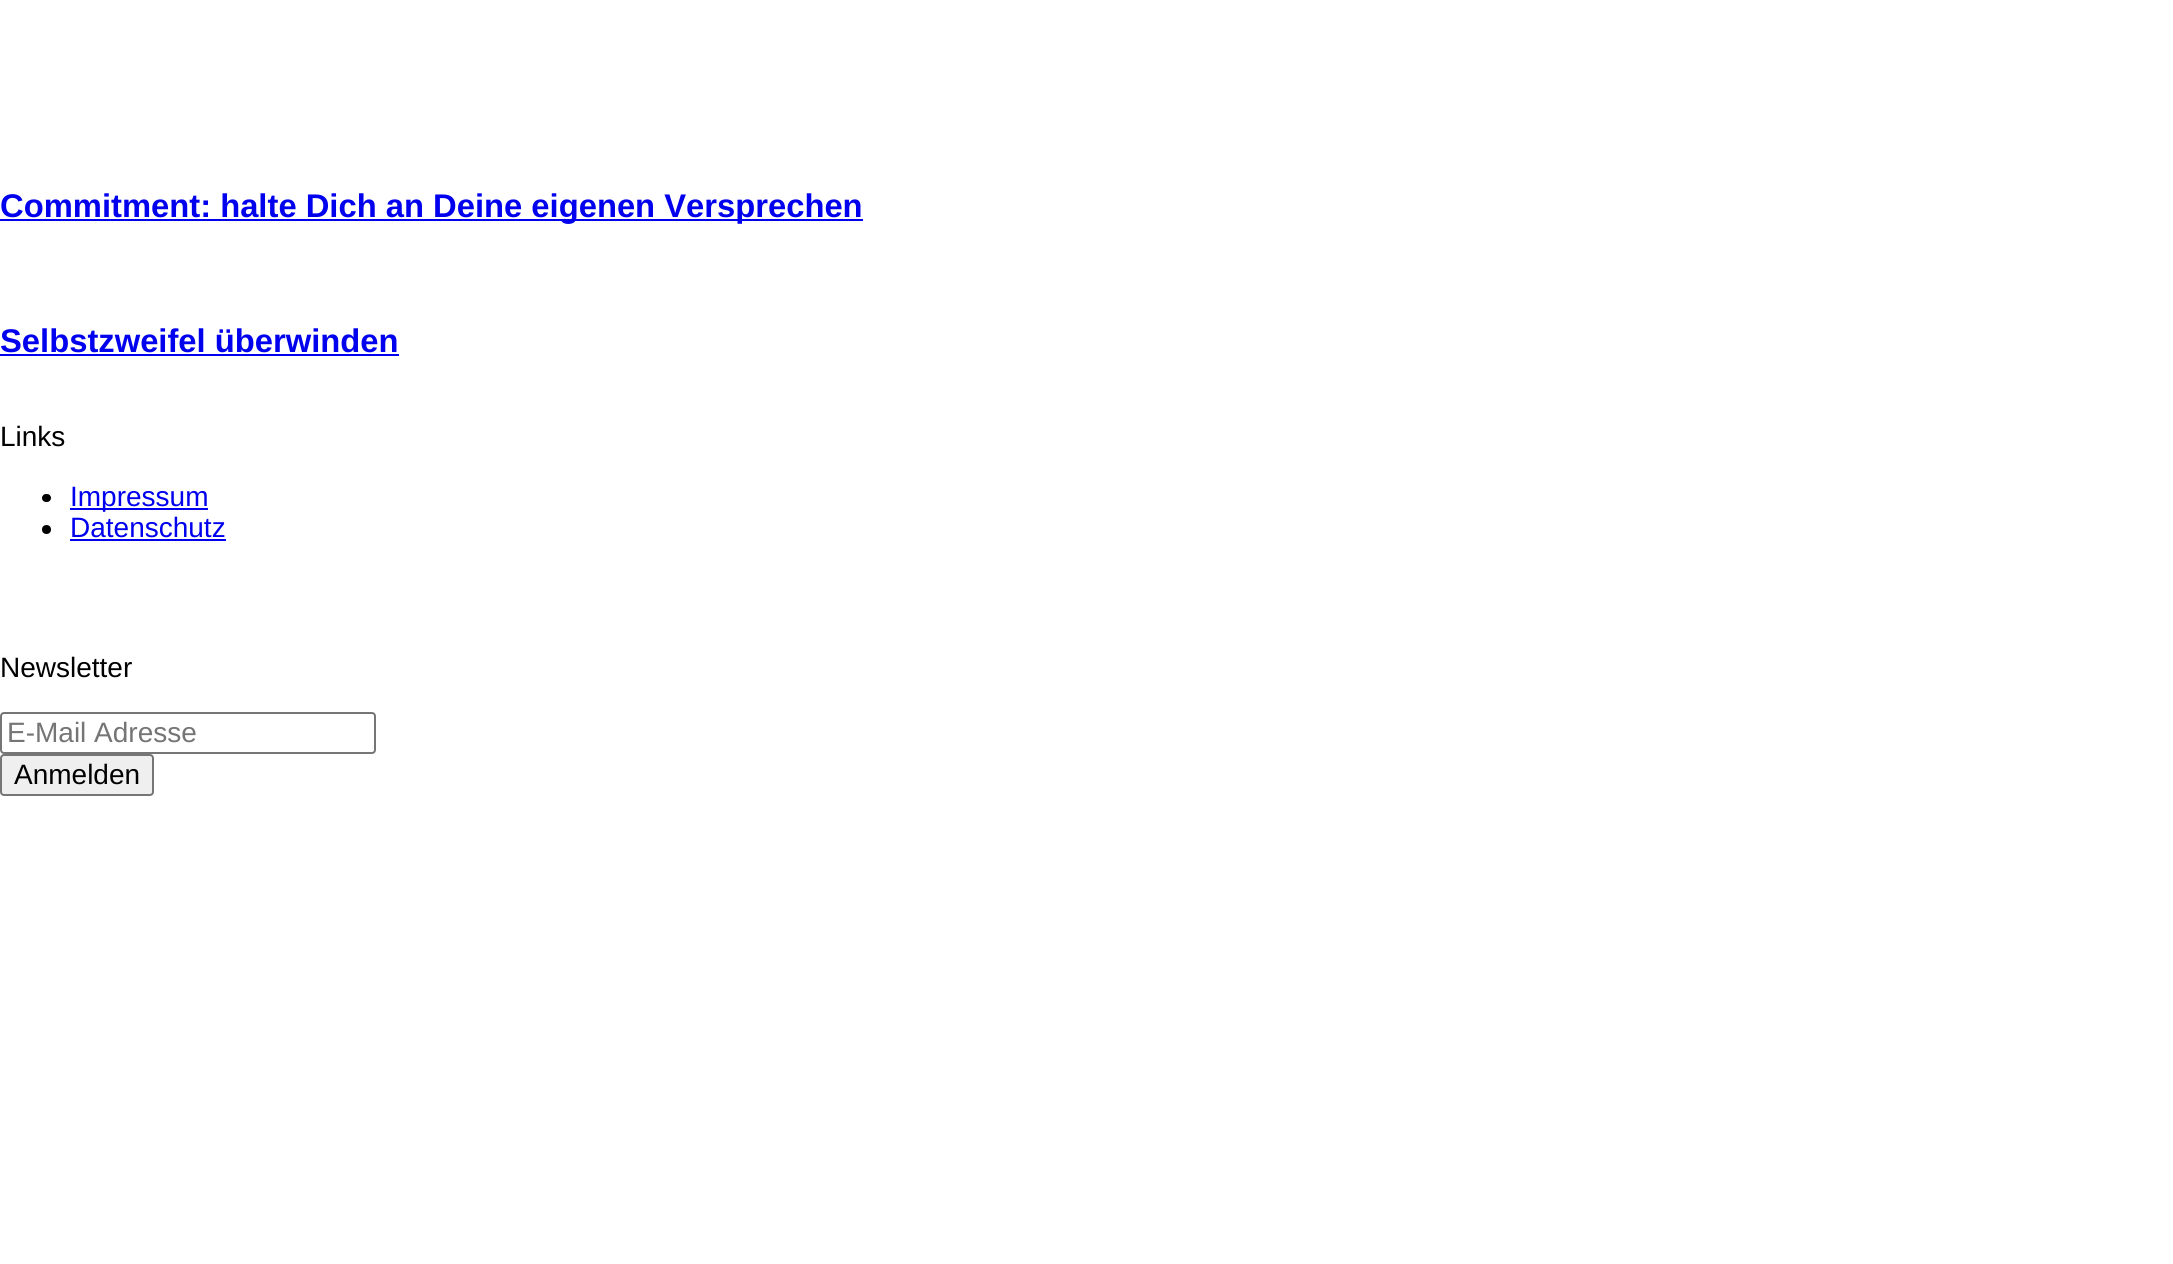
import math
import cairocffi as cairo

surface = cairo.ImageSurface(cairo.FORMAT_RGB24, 2173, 1264)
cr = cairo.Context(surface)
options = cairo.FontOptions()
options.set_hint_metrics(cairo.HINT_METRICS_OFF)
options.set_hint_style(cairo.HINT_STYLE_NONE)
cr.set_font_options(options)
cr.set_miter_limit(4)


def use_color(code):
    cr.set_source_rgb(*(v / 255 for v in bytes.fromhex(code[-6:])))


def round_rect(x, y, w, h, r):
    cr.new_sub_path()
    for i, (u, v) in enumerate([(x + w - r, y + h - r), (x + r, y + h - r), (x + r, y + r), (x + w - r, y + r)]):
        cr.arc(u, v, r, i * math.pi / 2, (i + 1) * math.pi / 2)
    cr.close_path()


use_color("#ffffff")
cr.paint()
use_color("#0000ee")
cr.rectangle(0, 219, 863, 2)
cr.fill()
cr.select_font_face("Liberation Sans", cairo.FONT_SLANT_NORMAL, cairo.FONT_WEIGHT_BOLD)
cr.set_font_size(32.75)
cr.move_to(0, 217)
cr.show_text("Commitment: halte Dich an Deine eigenen Versprechen")
cr.move_to(0, 352)
cr.show_text("Selbstzweifel überwinden")
cr.rectangle(0, 354, 399, 2)
cr.fill()
cr.select_font_face("Liberation Sans")
cr.set_font_size(28)
use_color("#000000")
cr.move_to(0, 446)
cr.show_text("Links")
round_rect(42, 494, 9, 8, 4)
cr.fill()
use_color("#0000ee")
cr.rectangle(70, 508, 138, 2)
cr.fill()
cr.move_to(70, 506)
cr.show_text("Impressum")
use_color("#000000")
cr.new_path()
cr.arc(46.5, 529.5, 4.5, 0, 2 * math.pi)
cr.fill()
use_color("#0000ee")
cr.move_to(70, 537)
cr.show_text("Datenschutz")
cr.rectangle(70, 539, 156, 2)
cr.fill()
use_color("#000000")
cr.move_to(0, 677)
cr.show_text("Newsletter")
round_rect(1, 713, 374, 40, 3)
use_color("#767676")
cr.stroke()
use_color("#757575")
cr.move_to(7, 742)
cr.show_text("E-Mail Adresse")
use_color("#efefef")
round_rect(1, 755, 152, 40, 3)
cr.fill_preserve()
use_color("#767676")
cr.stroke()
use_color("#000000")
cr.move_to(14, 784)
cr.show_text("Anmelden")
surface.write_to_png("result.png")
